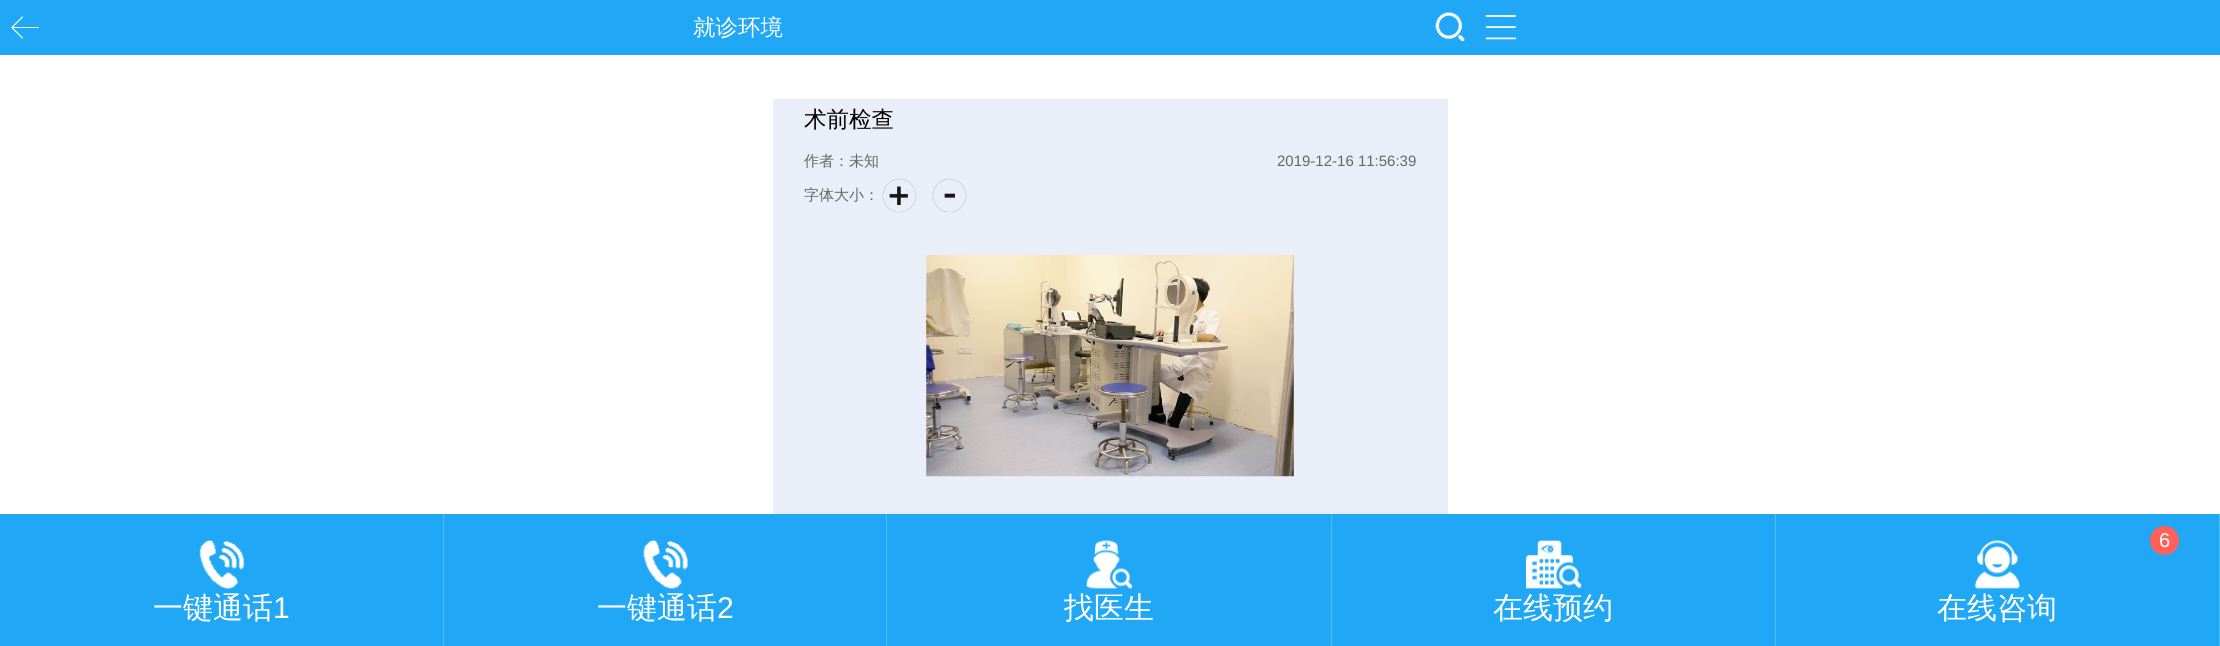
import math
import cairocffi as cairo

surface = cairo.ImageSurface(cairo.FORMAT_RGB24, 2220, 646)
cr = cairo.Context(surface)
options = cairo.FontOptions()
options.set_hint_metrics(cairo.HINT_METRICS_OFF)
options.set_hint_style(cairo.HINT_STYLE_NONE)
cr.set_font_options(options)
cr.set_miter_limit(4)


def use_color(code):
    cr.set_source_rgb(*(v / 255 for v in bytes.fromhex(code[-6:])))


def picture(path, x, y, w, h):
    cr.save()
    cr.set_source_surface(cairo.ImageSurface.create_from_png(path), x, y)
    cr.rectangle(x, y, w, h)
    cr.fill()
    cr.restore()


use_color("#ffffff")
cr.paint()
use_color("#20a7f6")
cr.rectangle(0, 0, 2220, 55)
cr.fill()
picture("img1.png", 11, 16, 28, 23)
cr.select_font_face("WenQuanYi Zen Hei Medium")
cr.set_font_size(22.5)
use_color("#ffffff")
cr.move_to(693, 35)
cr.show_text("就诊环境")
picture("img2.png", 1435, 12, 30, 30)
picture("img3.png", 1485, 15, 32, 25)
use_color("#eaeef9")
cr.rectangle(773, 99, 675, 415)
cr.fill()
use_color("#000000")
cr.move_to(804, 127)
cr.show_text("术前检查")
cr.set_font_size(15)
use_color("#666666")
cr.move_to(804, 166)
cr.show_text("作者：未知")
cr.select_font_face("Liberation Sans")
cr.move_to(1277, 166)
cr.show_text("2019-12-16 11:56:39")
cr.select_font_face("WenQuanYi Zen Hei Medium")
cr.move_to(804, 200)
cr.show_text("字体大小：")
picture("img4.png", 882, 178, 35, 35)
picture("img5.png", 932, 178, 35, 35)
picture("img6.png", 926, 255, 368, 222)
use_color("#20a7f6")
cr.rectangle(0, 514, 2219, 132)
cr.fill()
use_color("#4cbeff")
cr.rectangle(443, 514, 1, 132)
cr.fill()
picture("img7.png", 199, 540, 46, 49)
cr.set_font_size(30)
use_color("#ffffff")
cr.move_to(153, 618)
cr.show_text("一键通话")
cr.select_font_face("Liberation Sans")
cr.move_to(273, 618)
cr.show_text("1")
use_color("#4cbeff")
cr.rectangle(886, 514, 1, 132)
cr.fill()
picture("img8.png", 643, 540, 45, 49)
cr.select_font_face("WenQuanYi Zen Hei Medium")
use_color("#ffffff")
cr.move_to(597, 618)
cr.show_text("一键通话")
cr.select_font_face("Liberation Sans")
cr.move_to(717, 618)
cr.show_text("2")
use_color("#4cbeff")
cr.rectangle(1331, 514, 1, 132)
cr.fill()
picture("img9.png", 1086, 540, 47, 49)
cr.select_font_face("WenQuanYi Zen Hei Medium")
use_color("#ffffff")
cr.move_to(1064, 618)
cr.show_text("找医生")
use_color("#4cbeff")
cr.rectangle(1775, 514, 1, 132)
cr.fill()
picture("img10.png", 1526, 540, 56, 49)
use_color("#ffffff")
cr.move_to(1493, 618)
cr.show_text("在线预约")
use_color("#4cbeff")
cr.rectangle(2219, 514, 1, 132)
cr.fill()
picture("img11.png", 1975, 540, 45, 49)
use_color("#ff6159")
cr.arc(2164.5, 540.5, 14.5, 0, 2 * math.pi)
cr.fill()
cr.select_font_face("Liberation Sans")
cr.set_font_size(20)
use_color("#ffffff")
cr.move_to(2159, 547)
cr.show_text("6")
cr.select_font_face("WenQuanYi Zen Hei Medium")
cr.set_font_size(30)
cr.move_to(1937, 618)
cr.show_text("在线咨询")
surface.write_to_png("result.png")
